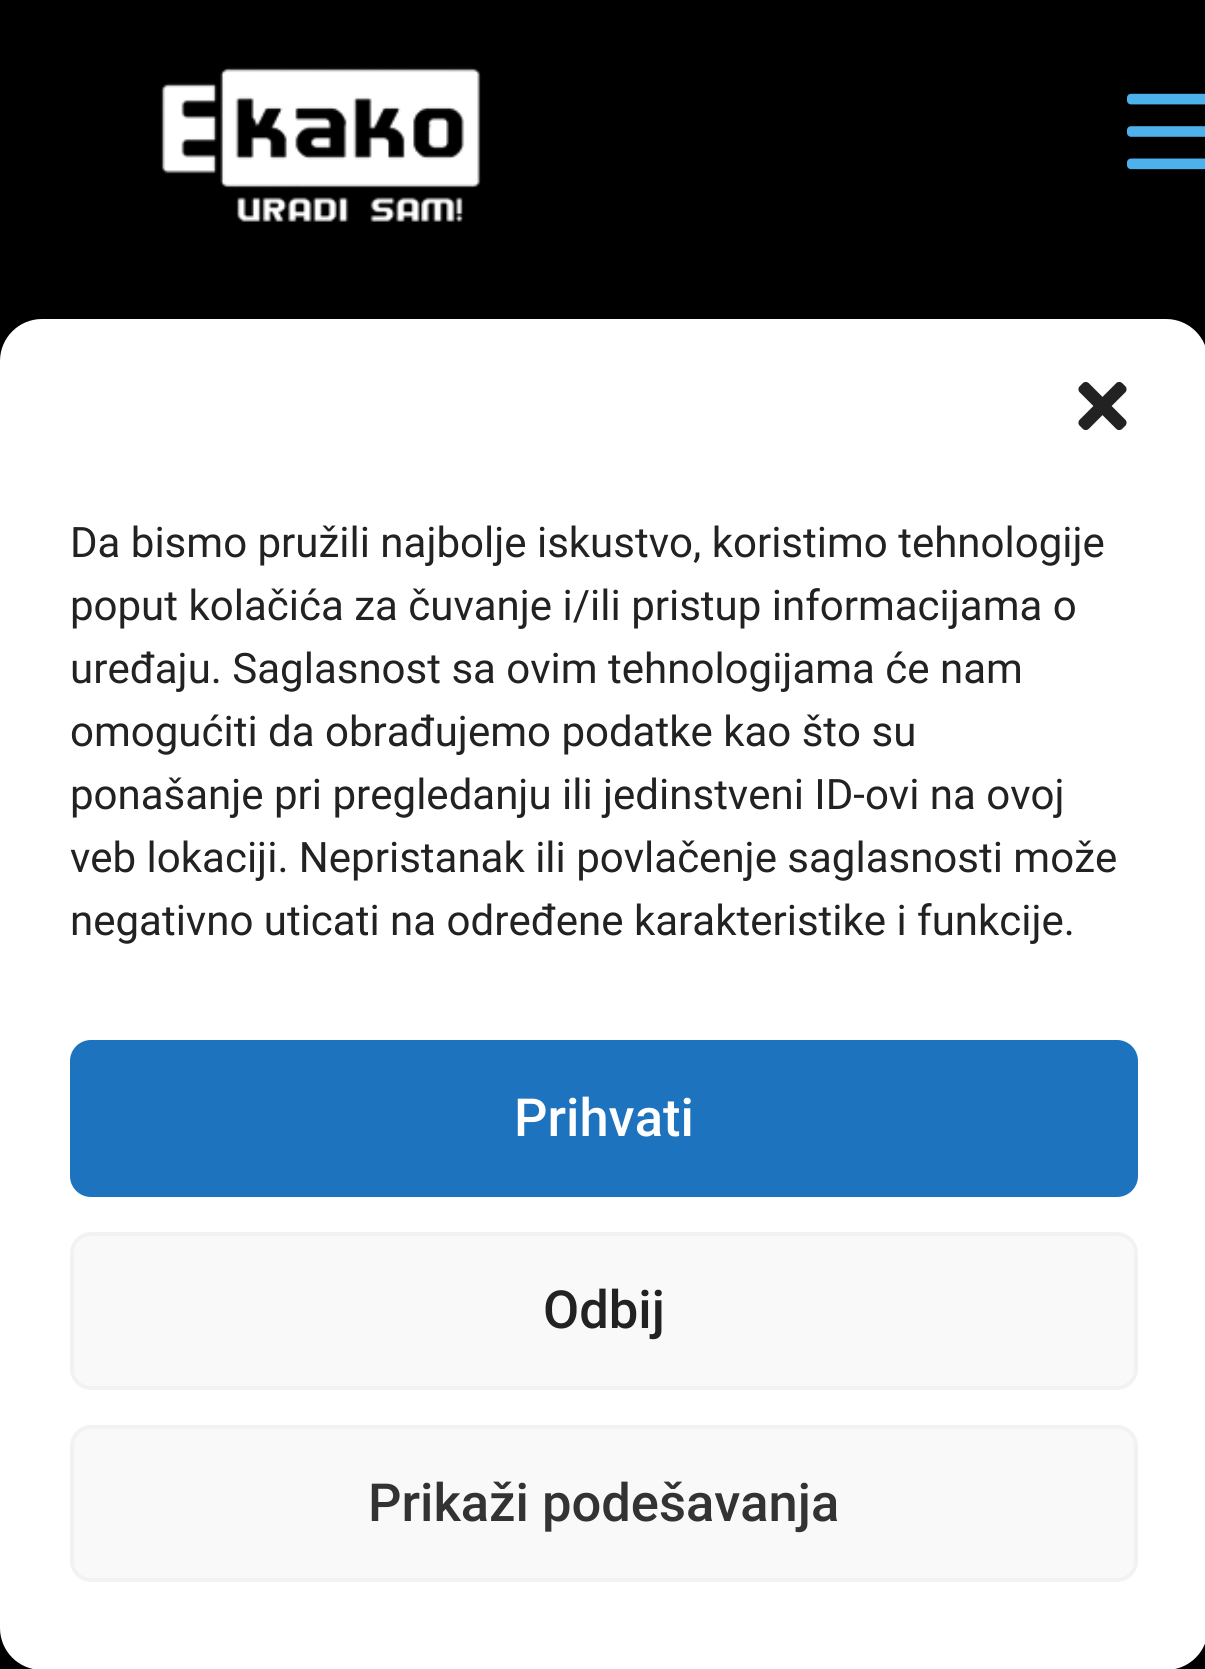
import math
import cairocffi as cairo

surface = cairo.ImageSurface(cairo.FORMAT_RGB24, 1205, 1669)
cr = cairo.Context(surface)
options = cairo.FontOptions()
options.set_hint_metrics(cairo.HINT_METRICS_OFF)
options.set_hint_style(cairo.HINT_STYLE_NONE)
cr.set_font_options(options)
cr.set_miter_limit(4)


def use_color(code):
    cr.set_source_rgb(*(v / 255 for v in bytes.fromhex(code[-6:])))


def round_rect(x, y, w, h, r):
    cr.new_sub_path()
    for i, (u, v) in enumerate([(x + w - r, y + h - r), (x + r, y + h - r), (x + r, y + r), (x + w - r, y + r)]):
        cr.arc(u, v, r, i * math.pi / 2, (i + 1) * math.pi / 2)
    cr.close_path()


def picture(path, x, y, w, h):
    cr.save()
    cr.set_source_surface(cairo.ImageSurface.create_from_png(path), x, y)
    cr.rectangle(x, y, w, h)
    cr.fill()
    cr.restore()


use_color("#000000")
cr.paint()
picture("img1.png", 160, 67, 321, 155)
picture("img2.png", 1127, 93, 78, 77)
use_color("#ffffff")
round_rect(0, 319, 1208, 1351, 42)
cr.fill()
picture("img3.png", 1078, 381, 49, 50)
cr.select_font_face("Roboto")
cr.set_font_size(42)
use_color("#222222")
cr.move_to(70, 557)
cr.show_text("Da bismo pružili najbolje iskustvo, koristimo tehnologije")
cr.move_to(70, 620)
cr.show_text("poput kolačića za čuvanje i/ili pristup informacijama o")
cr.move_to(70, 683)
cr.show_text("uređaju. Saglasnost sa ovim tehnologijama će nam")
cr.move_to(70, 746)
cr.show_text("omogućiti da obrađujemo podatke kao što su")
cr.move_to(70, 809)
cr.show_text("ponašanje pri pregledanju ili jedinstveni ID-ovi na ovoj")
cr.move_to(70, 872)
cr.show_text("veb lokaciji. Nepristanak ili povlačenje saglasnosti može")
cr.move_to(70, 935)
cr.show_text("negativno uticati na određene karakteristike i funkcije.")
use_color("#1e73be")
round_rect(72, 1042, 1064, 153, 19)
cr.fill_preserve()
cr.set_line_width(4)
cr.stroke()
cr.select_font_face("Roboto Medium")
cr.set_font_size(52.5)
use_color("#ffffff")
cr.move_to(514, 1136)
cr.show_text("Prihvati")
use_color("#f9f9f9")
round_rect(72, 1234, 1064, 154, 19)
cr.fill_preserve()
use_color("#f2f2f2")
cr.stroke()
use_color("#222222")
cr.move_to(543, 1328)
cr.show_text("Odbij")
use_color("#f9f9f9")
round_rect(72, 1427, 1064, 153, 19)
cr.fill_preserve()
use_color("#f2f2f2")
cr.stroke()
use_color("#333333")
cr.move_to(368, 1521)
cr.show_text("Prikaži podešavanja")
surface.write_to_png("result.png")
